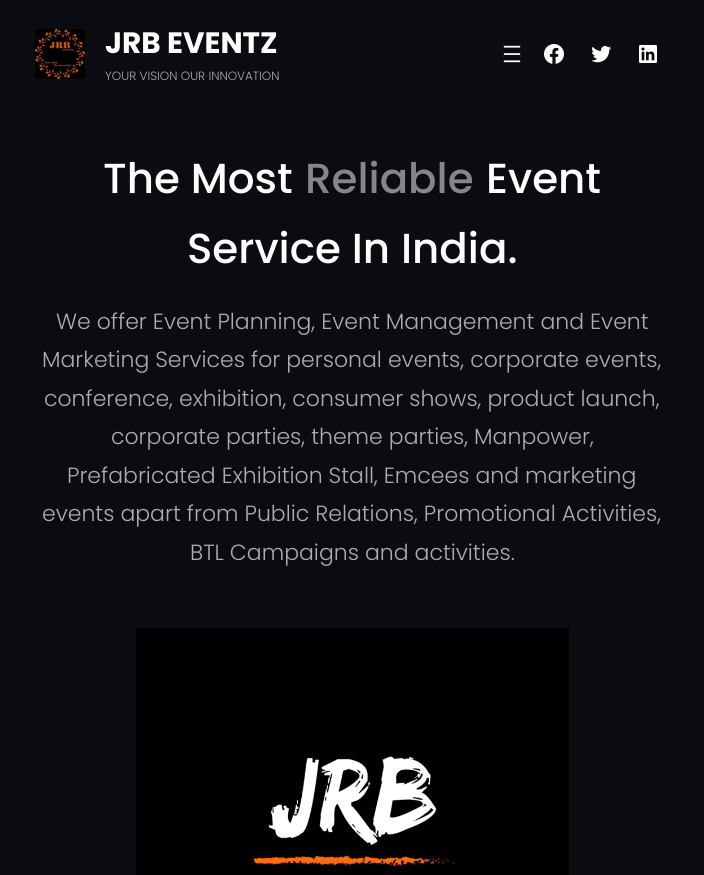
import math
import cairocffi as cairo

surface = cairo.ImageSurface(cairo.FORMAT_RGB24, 704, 875)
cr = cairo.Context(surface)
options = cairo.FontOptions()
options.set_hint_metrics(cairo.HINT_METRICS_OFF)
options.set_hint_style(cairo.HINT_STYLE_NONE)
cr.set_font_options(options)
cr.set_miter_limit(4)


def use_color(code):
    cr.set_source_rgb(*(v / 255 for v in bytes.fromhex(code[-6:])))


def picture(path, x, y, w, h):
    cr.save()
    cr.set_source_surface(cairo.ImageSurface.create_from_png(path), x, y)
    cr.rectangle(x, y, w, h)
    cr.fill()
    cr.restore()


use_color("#0a0c11")
cr.paint()
picture("img1.png", 35, 29, 50, 50)
cr.select_font_face("Poppins", cairo.FONT_SLANT_NORMAL, cairo.FONT_WEIGHT_BOLD)
cr.set_font_size(29.5)
use_color("#ffffff")
cr.move_to(105, 53)
cr.show_text("JRB EVENTZ")
cr.select_font_face("Poppins Light")
cr.set_font_size(12)
use_color("#abadb3")
cr.move_to(105, 80)
cr.show_text("YOUR VISION OUR INNOVATION")
picture("img2.png", 503, 45, 18, 18)
picture("img3.png", 544, 44, 20, 20)
picture("img4.png", 591, 46, 20, 17)
picture("img5.png", 639, 45, 18, 18)
cr.select_font_face("Poppins Medium")
cr.set_font_size(42)
use_color("#ffffff")
cr.move_to(103, 193)
cr.show_text("The Most")
use_color("#858688")
cr.move_to(305, 193)
cr.show_text("Reliable")
use_color("#ffffff")
cr.move_to(486, 193)
cr.show_text("Event")
cr.move_to(187, 263)
cr.show_text("Service In India.")
cr.select_font_face("Poppins Light")
cr.set_font_size(22)
use_color("#abadb3")
cr.move_to(56, 329)
cr.show_text("We offer Event Planning, Event Management and Event")
cr.move_to(42, 367)
cr.show_text("Marketing Services for personal events, corporate events,")
cr.move_to(44, 406)
cr.show_text("conference, exhibition, consumer shows, product launch,")
cr.move_to(111, 444)
cr.show_text("corporate parties, theme parties, Manpower,")
cr.move_to(67, 483)
cr.show_text("Prefabricated Exhibition Stall, Emcees and marketing")
cr.move_to(42, 521)
cr.show_text("events apart from Public Relations, Promotional Activities,")
cr.move_to(190, 560)
cr.show_text("BTL Campaigns and activities.")
picture("img6.png", 136, 628, 433, 247)
surface.write_to_png("result.png")
